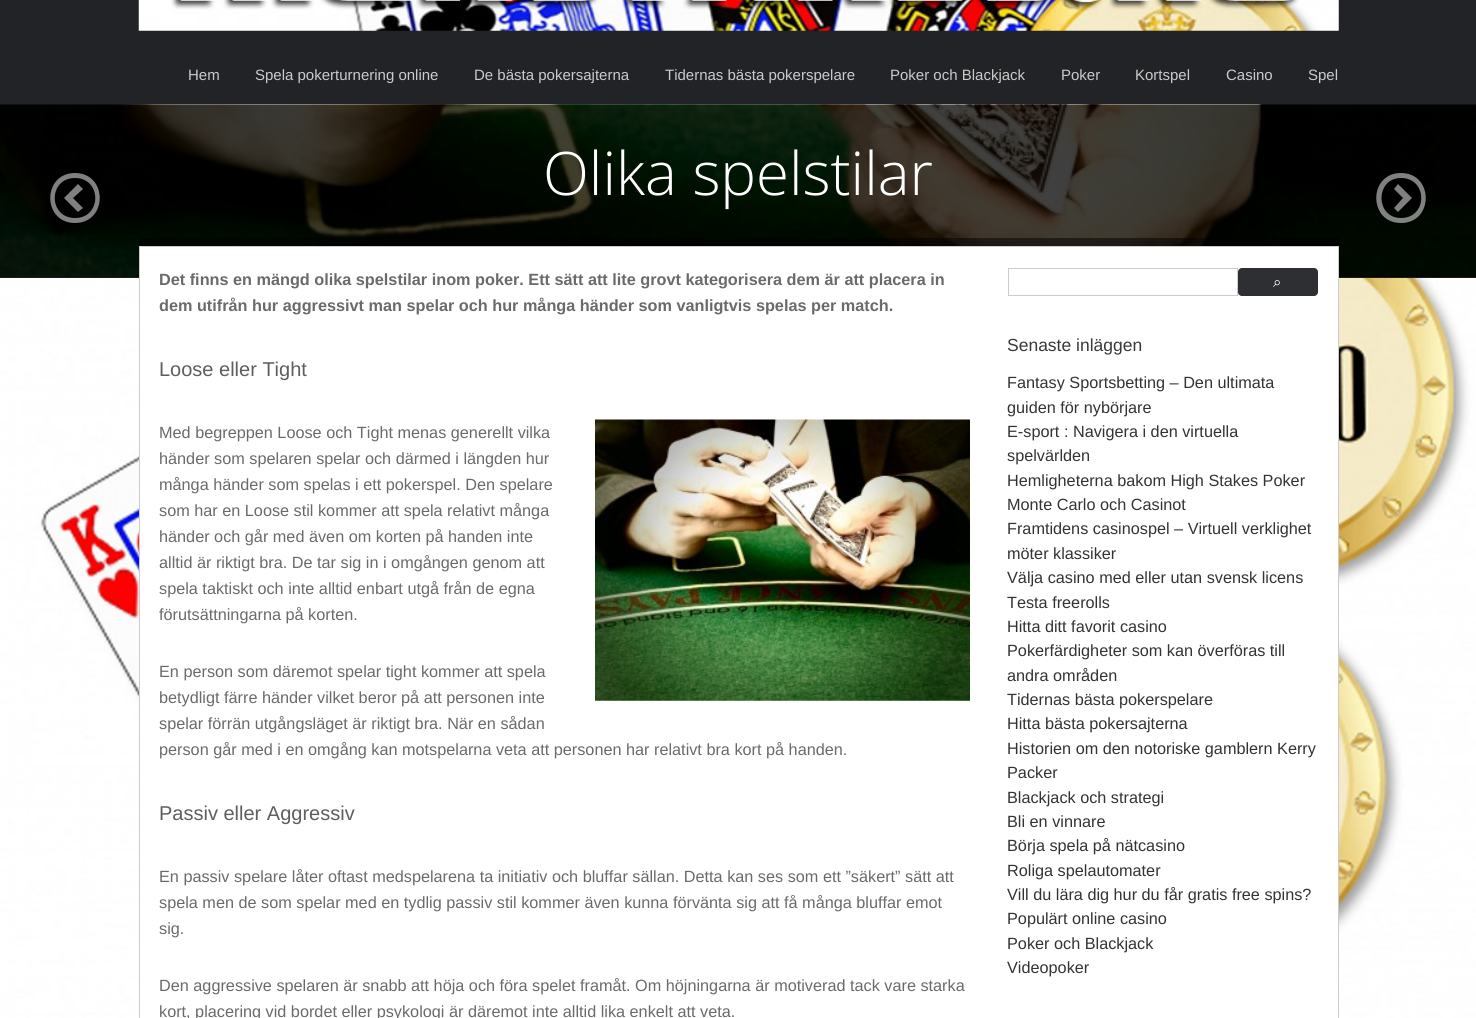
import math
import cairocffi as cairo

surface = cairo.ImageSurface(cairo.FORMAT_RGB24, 1476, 1018)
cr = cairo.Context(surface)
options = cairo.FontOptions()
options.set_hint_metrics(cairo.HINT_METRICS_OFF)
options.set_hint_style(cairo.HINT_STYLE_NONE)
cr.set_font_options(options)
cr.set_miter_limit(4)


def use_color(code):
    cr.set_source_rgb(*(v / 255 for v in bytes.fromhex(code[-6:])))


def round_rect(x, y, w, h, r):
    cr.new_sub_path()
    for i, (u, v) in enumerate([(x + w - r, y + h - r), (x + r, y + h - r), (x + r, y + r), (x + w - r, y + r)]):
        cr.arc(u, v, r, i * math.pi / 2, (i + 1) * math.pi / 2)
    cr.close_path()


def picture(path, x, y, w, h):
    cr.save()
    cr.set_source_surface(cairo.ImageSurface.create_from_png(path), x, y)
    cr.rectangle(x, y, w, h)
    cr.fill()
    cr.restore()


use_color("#ffffff")
cr.paint()
picture("img1.png", 0, 278, 1476, 740)
use_color("#212326")
cr.rectangle(0, 0, 1476, 105)
cr.fill()
picture("img2.png", 138, 0, 1201, 31)
cr.select_font_face("Liberation Sans")
cr.set_font_size(15)
use_color("#cbcbcb")
cr.move_to(188, 80)
cr.show_text("Hem")
cr.move_to(255, 80)
cr.show_text("Spela pokerturnering online")
cr.move_to(474, 80)
cr.show_text("De bästa pokersajterna")
cr.move_to(665, 80)
cr.show_text("Tidernas bästa pokerspelare")
cr.move_to(890, 80)
cr.show_text("Poker och Blackjack")
cr.move_to(1061, 80)
cr.show_text("Poker")
cr.move_to(1135, 80)
cr.show_text("Kortspel")
cr.move_to(1226, 80)
cr.show_text("Casino")
cr.move_to(1308, 80)
cr.show_text("Spel")
use_color("#1c1c1c")
cr.rectangle(0, 277, 1476, 1)
cr.fill()
picture("img3.png", 0, 104, 1476, 173)
use_color("#808080")
cr.new_path()
cr.move_to(75, 223)
cr.curve_to(108, 223, 108, 173, 75, 173)
cr.curve_to(42, 173, 42, 223, 75, 223)
cr.close_path()
cr.move_to(75, 178)
cr.curve_to(102, 178, 102, 218, 75, 218)
cr.curve_to(48, 218, 48, 178, 75, 178)
cr.close_path()
cr.move_to(83, 189)
cr.line_to(78, 184)
cr.line_to(64, 198)
cr.line_to(78, 212)
cr.line_to(83, 208)
cr.line_to(73, 198)
cr.close_path()
cr.fill()
cr.select_font_face("Open Sans Light")
cr.set_font_size(60)
use_color("#ffffff")
cr.move_to(543, 195)
cr.show_text("Olika spelstilar")
cr.set_source_rgba(1, 1, 1, 0.5)
cr.new_path()
cr.move_to(1401, 173)
cr.curve_to(1368, 173, 1368, 223, 1401, 223)
cr.curve_to(1434, 223, 1434, 173, 1401, 173)
cr.close_path()
cr.move_to(1401, 218)
cr.curve_to(1375, 218, 1375, 178, 1401, 178)
cr.curve_to(1428, 178, 1428, 218, 1401, 218)
cr.close_path()
cr.move_to(1394, 208)
cr.line_to(1398, 212)
cr.line_to(1412, 198)
cr.line_to(1398, 184)
cr.line_to(1394, 189)
cr.line_to(1403, 198)
cr.close_path()
cr.fill()
cr.set_source_rgba(0, 0, 0, 0.5)
cr.rectangle(139, 238, 1200, 8)
cr.fill()
use_color("#ffffff")
cr.rectangle(139.5, 246.5, 1199, 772)
cr.fill_preserve()
use_color("#cccccc")
cr.set_line_width(1)
cr.stroke()
cr.select_font_face("Liberation Sans", cairo.FONT_SLANT_NORMAL, cairo.FONT_WEIGHT_BOLD)
cr.set_font_size(16.25)
use_color("#6a6a6a")
cr.move_to(159, 285)
cr.show_text("Det finns en mängd olika spelstilar inom poker. Ett sätt att lite grovt kategorisera dem är att placera in")
cr.move_to(159, 311)
cr.show_text("dem utifrån hur aggressivt man spelar och hur många händer som vanligtvis spelas per match.")
cr.select_font_face("Liberation Sans")
cr.set_font_size(20)
use_color("#5e5e5e")
cr.move_to(159, 376)
cr.show_text("Loose eller Tight")
cr.set_font_size(16.25)
use_color("#6a6a6a")
cr.move_to(159, 438)
cr.show_text("Med begreppen Loose och Tight menas generellt vilka")
picture("img4.png", 595, 419, 375, 282)
cr.move_to(159, 464)
cr.show_text("händer som spelaren spelar och därmed i längden hur")
cr.move_to(159, 490)
cr.show_text("många händer som spelas i ett pokerspel. Den spelare")
cr.move_to(159, 516)
cr.show_text("som har en Loose stil kommer att spela relativt många")
cr.move_to(159, 542)
cr.show_text("händer och går med även om korten på handen inte")
cr.move_to(159, 568)
cr.show_text("alltid är riktigt bra. De tar sig in i omgången genom att")
cr.move_to(159, 594)
cr.show_text("spela taktiskt och inte alltid enbart utgå från de egna")
cr.move_to(159, 620)
cr.show_text("förutsättningarna på korten.")
cr.move_to(159, 677)
cr.show_text("En person som däremot spelar tight kommer att spela")
cr.move_to(159, 703)
cr.show_text("betydligt färre händer vilket beror på att personen inte")
cr.move_to(159, 729)
cr.show_text("spelar förrän utgångsläget är riktigt bra. När en sådan")
cr.move_to(159, 755)
cr.show_text("person går med i en omgång kan motspelarna veta att personen har relativt bra kort på handen.")
cr.set_font_size(20)
use_color("#5e5e5e")
cr.move_to(159, 820)
cr.show_text("Passiv eller Aggressiv")
cr.set_font_size(16.25)
use_color("#6a6a6a")
cr.move_to(159, 882)
cr.show_text("En passiv spelare låter oftast medspelarena ta initiativ och bluffar sällan. Detta kan ses som ett ”säkert” sätt att")
cr.move_to(159, 908)
cr.show_text("spela men de som spelar med en tydlig passiv stil kommer även kunna förvänta sig att få många bluffar emot")
cr.move_to(159, 934)
cr.show_text("sig.")
cr.move_to(159, 991)
cr.show_text("Den aggressive spelaren är snabb att höja och föra spelet framåt. Om höjningarna är motiverad tack vare starka")
cr.move_to(159, 1017)
cr.show_text("kort, placering vid bordet eller psykologi är däremot inte alltid lika enkelt att veta.")
cr.rectangle(1008.5, 268.5, 229, 27)
use_color("#cccccc")
cr.stroke()
use_color("#2d2f33")
round_rect(1238, 268, 80, 28, 4)
cr.fill()
cr.select_font_face("FreeSerif")
cr.set_font_size(15)
use_color("#ffffff")
cr.move_to(1273, 287)
cr.show_text("⌕")
cr.select_font_face("Liberation Sans")
cr.set_font_size(17.5)
use_color("#393939")
cr.move_to(1007, 351)
cr.show_text("Senaste inläggen")
cr.set_font_size(16.25)
use_color("#333333")
cr.move_to(1007, 388)
cr.show_text("Fantasy Sportsbetting – Den ultimata")
cr.move_to(1007, 413)
cr.show_text("guiden för nybörjare")
cr.move_to(1007, 437)
cr.show_text("E-sport : Navigera i den virtuella")
cr.move_to(1007, 461)
cr.show_text("spelvärlden")
cr.move_to(1007, 486)
cr.show_text("Hemligheterna bakom High Stakes Poker")
cr.move_to(1007, 510)
cr.show_text("Monte Carlo och Casinot")
cr.move_to(1007, 534)
cr.show_text("Framtidens casinospel – Virtuell verklighet")
cr.move_to(1007, 559)
cr.show_text("möter klassiker")
cr.move_to(1007, 583)
cr.show_text("Välja casino med eller utan svensk licens")
cr.move_to(1007, 608)
cr.show_text("Testa freerolls")
cr.move_to(1007, 632)
cr.show_text("Hitta ditt favorit casino")
cr.move_to(1007, 656)
cr.show_text("Pokerfärdigheter som kan överföras till")
cr.move_to(1007, 681)
cr.show_text("andra områden")
cr.move_to(1007, 705)
cr.show_text("Tidernas bästa pokerspelare")
cr.move_to(1007, 729)
cr.show_text("Hitta bästa pokersajterna")
cr.move_to(1007, 754)
cr.show_text("Historien om den notoriske gamblern Kerry")
cr.move_to(1007, 778)
cr.show_text("Packer")
cr.move_to(1007, 803)
cr.show_text("Blackjack och strategi")
cr.move_to(1007, 827)
cr.show_text("Bli en vinnare")
cr.move_to(1007, 851)
cr.show_text("Börja spela på nätcasino")
cr.move_to(1007, 876)
cr.show_text("Roliga spelautomater")
cr.move_to(1007, 900)
cr.show_text("Vill du lära dig hur du får gratis free spins?")
cr.move_to(1007, 924)
cr.show_text("Populärt online casino")
cr.move_to(1007, 949)
cr.show_text("Poker och Blackjack")
cr.move_to(1007, 973)
cr.show_text("Videopoker")
surface.write_to_png("result.png")
